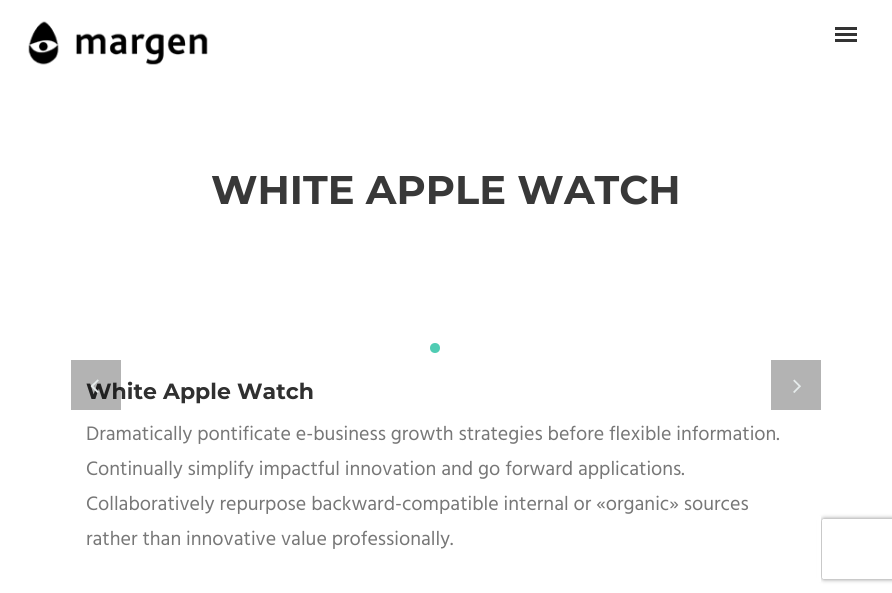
import math
import cairocffi as cairo

surface = cairo.ImageSurface(cairo.FORMAT_RGB24, 892, 593)
cr = cairo.Context(surface)
options = cairo.FontOptions()
options.set_hint_metrics(cairo.HINT_METRICS_OFF)
options.set_hint_style(cairo.HINT_STYLE_NONE)
cr.set_font_options(options)
cr.set_miter_limit(4)


def use_color(code):
    cr.set_source_rgb(*(v / 255 for v in bytes.fromhex(code[-6:])))


def round_rect(x, y, w, h, r):
    cr.new_sub_path()
    for i, (u, v) in enumerate([(x + w - r, y + h - r), (x + r, y + h - r), (x + r, y + r), (x + w - r, y + r)]):
        cr.arc(u, v, r, i * math.pi / 2, (i + 1) * math.pi / 2)
    cr.close_path()


def shadow(x, y, w, h, r, blur, alpha):
    cr.push_group_with_content(cairo.CONTENT_ALPHA)
    cr.set_operator(cairo.OPERATOR_SOURCE)
    for i in range(15, -16, -2):
        e = blur * i / 6
        if min(w, h) + 2 * e > 0:
            cr.set_source_rgba(0, 0, 0, alpha * math.erfc((i - 1) / 8.5) / 2)
            round_rect(x - e, y - e, w + 2 * e, h + 2 * e, max(0, min(r + e + blur * .6, min(w, h) / 2 + e)))
            cr.fill()
    cr.mask(cr.pop_group())


def picture(path, x, y, w, h):
    cr.save()
    cr.set_source_surface(cairo.ImageSurface.create_from_png(path), x, y)
    cr.rectangle(x, y, w, h)
    cr.fill()
    cr.restore()


use_color("#ffffff")
cr.paint()
picture("img1.png", 28, 21, 180, 44)
use_color("#333333")
cr.rectangle(835, 39, 22, 3)
cr.fill()
cr.rectangle(835, 33, 22, 3)
cr.fill()
cr.rectangle(835, 27, 22, 3)
cr.fill()
cr.select_font_face("Montserrat", cairo.FONT_SLANT_NORMAL, cairo.FONT_WEIGHT_BOLD)
cr.set_font_size(40)
use_color("#383838")
cr.move_to(211, 204)
cr.show_text("WHITE APPLE WATCH")
cr.save()
cr.set_fill_rule(cairo.FILL_RULE_EVEN_ODD)
cr.new_path()
cr.move_to(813, 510)
cr.line_to(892, 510)
cr.line_to(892, 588)
cr.line_to(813, 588)
cr.close_path()
cr.move_to(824, 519)
cr.line_to(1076, 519)
cr.curve_to(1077, 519, 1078, 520, 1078, 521)
cr.line_to(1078, 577)
cr.curve_to(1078, 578, 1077, 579, 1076, 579)
cr.line_to(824, 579)
cr.curve_to(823, 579, 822, 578, 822, 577)
cr.line_to(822, 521)
cr.curve_to(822, 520, 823, 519, 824, 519)
cr.close_path()
cr.clip()
use_color("#808080")
shadow(822, 519, 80, 60, 2, 2.5, 1)
cr.restore()
use_color("#ffffff")
cr.rectangle(817, 516, 4, 66)
cr.fill()
use_color("#50ccb3")
cr.arc(435, 348, 5, 0, 2 * math.pi)
cr.fill()
cr.set_font_size(22)
use_color("#303030")
cr.move_to(86, 399)
cr.show_text("White Apple Watch")
cr.set_source_rgba(0, 0, 0, 0.3)
cr.rectangle(71, 360, 50, 50)
cr.fill()
picture("img2.png", 90, 379, 9, 14)
use_color("#b3b3b3")
cr.rectangle(771, 360, 50, 50)
cr.fill()
picture("img3.png", 793, 379, 8, 14)
cr.select_font_face("Hind")
cr.set_font_size(20)
use_color("#777777")
cr.move_to(86, 440)
cr.show_text("Dramatically pontificate e-business growth strategies before flexible information.")
cr.move_to(86, 475)
cr.show_text("Continually simplify impactful innovation and go forward applications.")
cr.move_to(86, 510)
cr.show_text("Collaboratively repurpose backward-compatible internal or «organic» sources")
cr.move_to(86, 545)
cr.show_text("rather than innovative value professionally.")
surface.write_to_png("result.png")
